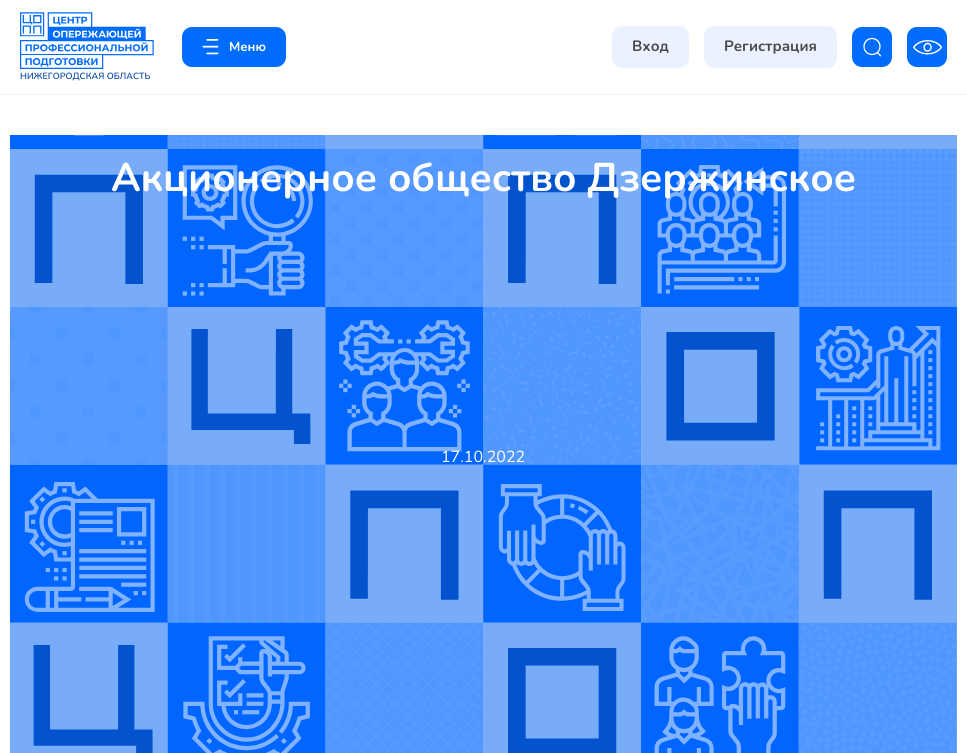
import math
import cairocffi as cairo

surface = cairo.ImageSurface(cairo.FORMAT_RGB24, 967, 753)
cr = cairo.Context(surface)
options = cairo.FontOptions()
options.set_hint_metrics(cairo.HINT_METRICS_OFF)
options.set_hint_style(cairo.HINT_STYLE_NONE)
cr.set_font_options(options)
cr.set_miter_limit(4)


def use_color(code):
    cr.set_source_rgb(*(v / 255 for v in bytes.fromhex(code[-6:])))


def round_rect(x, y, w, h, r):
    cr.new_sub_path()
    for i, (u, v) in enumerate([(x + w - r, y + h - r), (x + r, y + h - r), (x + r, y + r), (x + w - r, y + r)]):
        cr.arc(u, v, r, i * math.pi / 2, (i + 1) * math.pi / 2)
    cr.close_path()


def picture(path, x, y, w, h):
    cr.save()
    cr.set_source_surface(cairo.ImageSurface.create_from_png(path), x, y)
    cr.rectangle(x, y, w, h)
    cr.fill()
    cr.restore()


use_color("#ffffff")
cr.paint()
use_color("#80b3ff")
cr.rectangle(10, 135, 947, 618)
cr.fill()
use_color("#f0f0f0")
cr.rectangle(0, 94, 967, 1)
cr.fill()
use_color("#006cfe")
round_rect(182, 27, 104, 40, 10)
cr.fill()
picture("img1.png", 202, 39, 17, 16)
cr.select_font_face("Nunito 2 ExtraLight")
cr.set_font_size(13)
use_color("#ffffff")
cr.move_to(229, 51)
cr.show_text("Меню")
use_color("#ebf1ff")
round_rect(612, 26, 77, 42, 10)
cr.fill()
cr.set_font_size(15)
use_color("#4a4a4a")
cr.move_to(632, 51)
cr.show_text("Вход")
use_color("#ebf1ff")
round_rect(704, 26, 133, 42, 10)
cr.fill()
use_color("#4a4a4a")
cr.move_to(724, 51)
cr.show_text("Регистрация")
use_color("#006cfe")
round_rect(852, 27, 40, 40, 10)
cr.fill()
picture("img2.png", 863, 37, 18, 20)
round_rect(907, 27, 40, 40, 10)
cr.fill()
picture("img3.png", 912, 40, 31, 15)
picture("img4.png", 20, 12, 134, 57)
cr.select_font_face("Nunito ExtraLight")
cr.set_font_size(9)
use_color("#0a48a3")
cr.move_to(20, 79)
cr.show_text("НИЖЕГОРОДСКАЯ ОБЛАСТЬ")
picture("img5.png", 10, 135, 947, 618)
cr.select_font_face("Nunito 2 ExtraLight")
cr.set_font_size(40)
use_color("#ffffff")
cr.move_to(111, 191)
cr.show_text("Акционерное общество Дзержинское")
cr.select_font_face("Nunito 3 ExtraLight")
cr.set_font_size(16)
cr.move_to(441, 462)
cr.show_text("17.10.2022")
surface.write_to_png("result.png")
